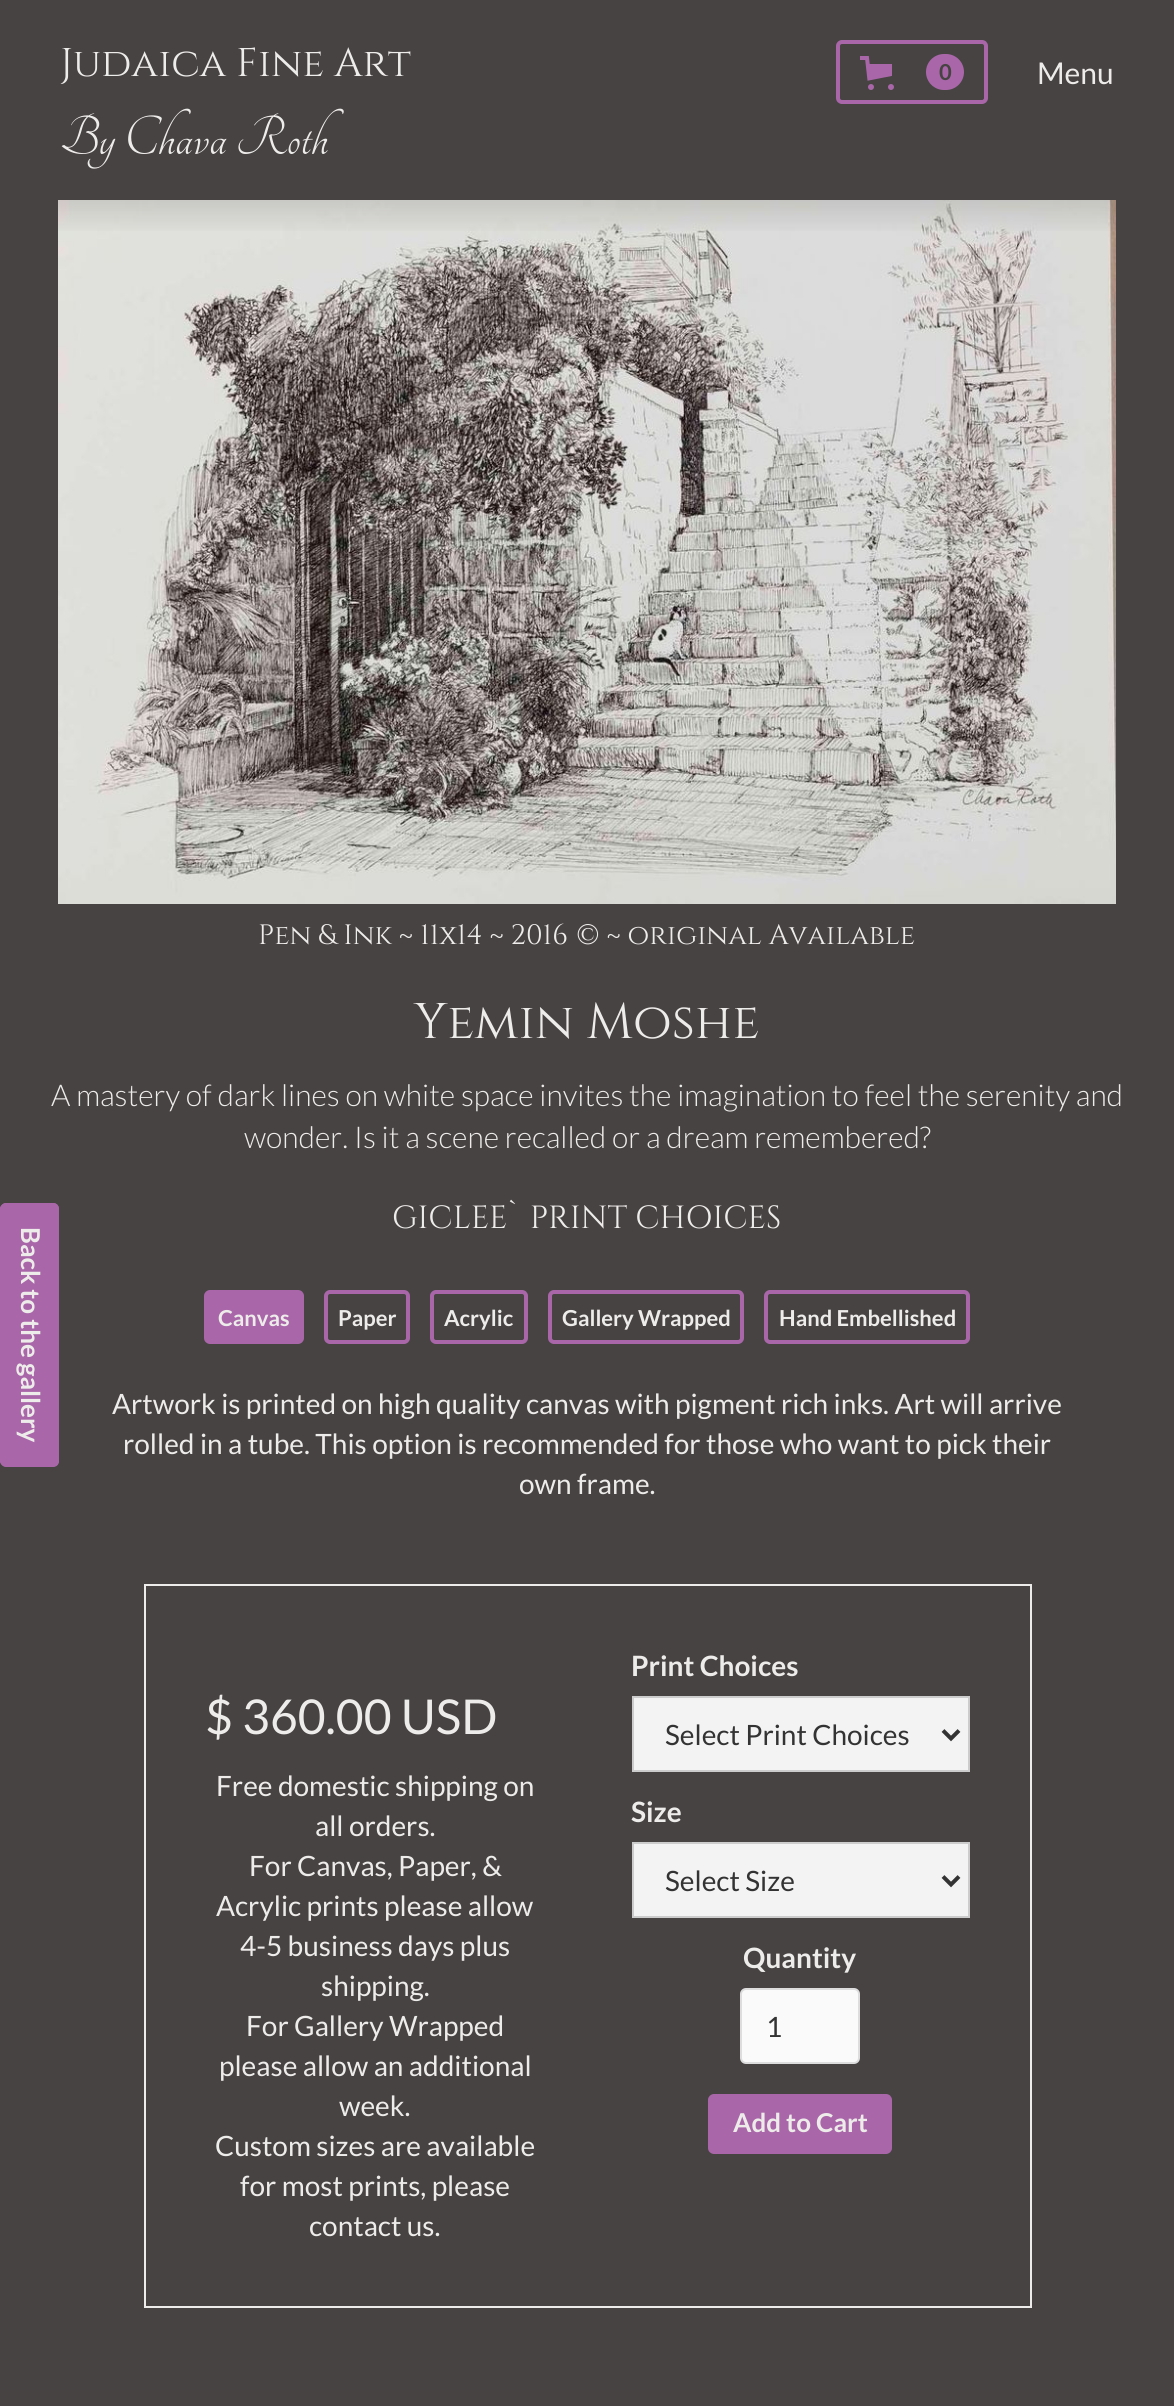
import math
import cairocffi as cairo

surface = cairo.ImageSurface(cairo.FORMAT_RGB24, 1174, 2406)
cr = cairo.Context(surface)
options = cairo.FontOptions()
options.set_hint_metrics(cairo.HINT_METRICS_OFF)
options.set_hint_style(cairo.HINT_STYLE_NONE)
cr.set_font_options(options)
cr.set_miter_limit(4)


def use_color(code):
    cr.set_source_rgb(*(v / 255 for v in bytes.fromhex(code[-6:])))


def round_rect(x, y, w, h, r):
    cr.new_sub_path()
    for i, (u, v) in enumerate([(x + w - r, y + h - r), (x + r, y + h - r), (x + r, y + r), (x + w - r, y + r)]):
        cr.arc(u, v, r, i * math.pi / 2, (i + 1) * math.pi / 2)
    cr.close_path()


def picture(path, x, y, w, h):
    cr.save()
    cr.set_source_surface(cairo.ImageSurface.create_from_png(path), x, y)
    cr.rectangle(x, y, w, h)
    cr.fill()
    cr.restore()


use_color("#474343")
cr.paint()
picture("img2.png", 58, 200, 1058, 704)
gradient = cairo.LinearGradient(587, 0, 587, 236)
gradient.add_color_stop_rgba(0, 0.278, 0.263, 0.263, 1)
gradient.add_color_stop_rgba(1, 0.278, 0.263, 0.263, 0)
cr.set_source(gradient)
cr.rectangle(58, 200, 1058, 31)
cr.fill()
cr.select_font_face("Cinzel")
cr.set_font_size(40)
use_color("#eeecea")
cr.move_to(60, 76)
cr.show_text("Judaica Fine Art")
round_rect(838, 42, 148, 60, 4)
use_color("#a967a9")
cr.set_line_width(4)
cr.stroke()
picture("img1.png", 860, 56, 34, 34)
round_rect(926, 54, 38, 36, 18)
cr.fill()
cr.select_font_face("Lato", cairo.FONT_SLANT_NORMAL, cairo.FONT_WEIGHT_BOLD)
cr.set_font_size(22)
use_color("#474343")
cr.move_to(939, 80)
cr.show_text("0")
cr.select_font_face("Lato")
cr.set_font_size(30)
use_color("#eeecea")
cr.move_to(1037, 84)
cr.show_text("Menu")
cr.select_font_face("Tangerine")
cr.set_font_size(60)
cr.move_to(60, 154)
cr.show_text("By Chava Roth")
cr.select_font_face("Cinzel")
cr.set_font_size(28)
cr.move_to(258, 944)
cr.show_text("Pen & Ink ~ 11x14 ~ 2016")
cr.move_to(576, 944)
cr.show_text("© ~ original Available")
cr.set_font_size(50)
cr.move_to(414, 1038)
cr.show_text("Yemin Moshe")
cr.select_font_face("Lato Light")
cr.set_font_size(30)
cr.move_to(51, 1106)
cr.show_text("A mastery of dark lines on white space invites the imagination to feel the serenity and")
cr.move_to(244, 1148)
cr.show_text("wonder. Is it a scene recalled or a dream remembered?")
use_color("#a967a9")
cr.new_path()
cr.move_to(59, 1209)
cr.line_to(59, 1461)
cr.curve_to(59, 1464, 57, 1467, 53, 1467)
cr.line_to(6, 1467)
cr.curve_to(3, 1467, 0, 1464, 0, 1461)
cr.line_to(0, 1209)
cr.curve_to(0, 1206, 3, 1203, 6, 1203)
cr.line_to(53, 1203)
cr.curve_to(57, 1203, 59, 1206, 59, 1209)
cr.close_path()
cr.fill()
cr.new_path()
cr.move_to(57, 1209)
cr.line_to(57, 1460.5)
cr.curve_to(57, 1462.5, 55.5, 1464.5, 53, 1464.5)
cr.line_to(6, 1464.5)
cr.curve_to(4, 1464.5, 2, 1462.5, 2, 1460.5)
cr.line_to(2, 1209)
cr.curve_to(2, 1207, 4, 1205, 6, 1205)
cr.line_to(53, 1205)
cr.curve_to(55.5, 1205, 57, 1207, 57, 1209)
cr.close_path()
cr.stroke()
cr.select_font_face("Lato", cairo.FONT_SLANT_NORMAL, cairo.FONT_WEIGHT_BOLD)
cr.set_font_size(26)
use_color("#eeecea")
cr.save()
cr.translate(21, 1227)
cr.rotate(90 * math.pi / 180)
cr.move_to(0, 0)
cr.show_text("Back to the gallery")
cr.restore()
cr.select_font_face("Cinzel")
cr.set_font_size(32)
cr.move_to(392, 1228)
cr.show_text("GICLEE` PRINT CHOICES")
use_color("#a967a9")
round_rect(206, 1292, 96, 50, 4)
cr.fill_preserve()
cr.stroke()
cr.select_font_face("Lato", cairo.FONT_SLANT_NORMAL, cairo.FONT_WEIGHT_BOLD)
cr.set_font_size(22)
use_color("#eeecea")
cr.move_to(218, 1326)
cr.show_text("Canvas")
round_rect(326, 1292, 82, 50, 4)
use_color("#a967a9")
cr.stroke()
use_color("#eeecea")
cr.move_to(338, 1326)
cr.show_text("Paper")
round_rect(432, 1292, 94, 50, 4)
use_color("#a967a9")
cr.stroke()
use_color("#eeecea")
cr.move_to(444, 1326)
cr.show_text("Acrylic")
round_rect(550, 1292, 192, 50, 4)
use_color("#a967a9")
cr.stroke()
use_color("#eeecea")
cr.move_to(562, 1326)
cr.show_text("Gallery Wrapped")
round_rect(766, 1292, 202, 50, 4)
use_color("#a967a9")
cr.stroke()
use_color("#eeecea")
cr.move_to(779, 1326)
cr.show_text("Hand Embellished")
cr.select_font_face("Lato")
cr.set_font_size(28)
cr.move_to(112, 1414)
cr.show_text("Artwork is printed on high quality canvas with pigment rich inks. Art will arrive")
cr.move_to(123, 1454)
cr.show_text("rolled in a tube. This option is recommended for those who want to pick their")
cr.move_to(519, 1494)
cr.show_text("own frame.")
cr.rectangle(145, 1585, 886, 722)
cr.set_line_width(2)
cr.stroke()
cr.set_font_size(48)
cr.move_to(205, 1734)
cr.show_text("$ 360.00 USD")
cr.set_font_size(28)
cr.move_to(216, 1796)
cr.show_text("Free domestic shipping on")
cr.move_to(315, 1836)
cr.show_text("all orders.")
cr.move_to(249, 1876)
cr.show_text("For Canvas, Paper, &")
cr.move_to(216, 1916)
cr.show_text("Acrylic prints please allow")
cr.move_to(240, 1956)
cr.show_text("4-5 business days plus")
cr.move_to(321, 1996)
cr.show_text("shipping.")
cr.move_to(246, 2036)
cr.show_text("For Gallery Wrapped")
cr.move_to(219, 2076)
cr.show_text("please allow an additional")
cr.move_to(339, 2116)
cr.show_text("week.")
cr.move_to(215, 2156)
cr.show_text("Custom sizes are available")
cr.move_to(240, 2196)
cr.show_text("for most prints, please")
cr.move_to(309, 2236)
cr.show_text("contact us.")
cr.select_font_face("Lato", cairo.FONT_SLANT_NORMAL, cairo.FONT_WEIGHT_BOLD)
cr.move_to(631, 1676)
cr.show_text("Print Choices")
use_color("#f3f3f3")
cr.rectangle(633, 1697, 336, 74)
cr.fill_preserve()
use_color("#cccccc")
cr.stroke()
cr.new_path()
cr.move_to(943, 1730.5)
cr.line_to(951, 1738.5)
cr.line_to(959, 1730.5)
use_color("#333333")
cr.set_line_width(4)
cr.stroke()
cr.select_font_face("Lato")
cr.move_to(665, 1745)
cr.show_text("Select Print Choices")
cr.select_font_face("Lato", cairo.FONT_SLANT_NORMAL, cairo.FONT_WEIGHT_BOLD)
use_color("#eeecea")
cr.move_to(631, 1822)
cr.show_text("Size")
use_color("#f3f3f3")
cr.rectangle(633, 1843, 336, 74)
cr.fill_preserve()
use_color("#cccccc")
cr.set_line_width(2)
cr.stroke()
cr.new_path()
cr.move_to(943, 1876.5)
cr.line_to(951, 1884.5)
cr.line_to(959, 1876.5)
use_color("#333333")
cr.set_line_width(4)
cr.stroke()
cr.select_font_face("Lato")
cr.move_to(665, 1891)
cr.show_text("Select Size")
cr.select_font_face("Lato", cairo.FONT_SLANT_NORMAL, cairo.FONT_WEIGHT_BOLD)
use_color("#eeecea")
cr.move_to(743, 1968)
cr.show_text("Quantity")
use_color("#fafafa")
round_rect(741, 1989, 118, 74, 5)
cr.fill_preserve()
use_color("#dddddd")
cr.set_line_width(2)
cr.stroke()
cr.select_font_face("Lato")
use_color("#333333")
cr.move_to(766, 2037)
cr.show_text("1")
use_color("#a967a9")
round_rect(710, 2096, 180, 56, 4)
cr.fill_preserve()
cr.set_line_width(4)
cr.stroke()
cr.select_font_face("Lato", cairo.FONT_SLANT_NORMAL, cairo.FONT_WEIGHT_BOLD)
cr.set_font_size(26)
use_color("#eeecea")
cr.move_to(733, 2132)
cr.show_text("Add to Cart")
surface.write_to_png("result.png")
